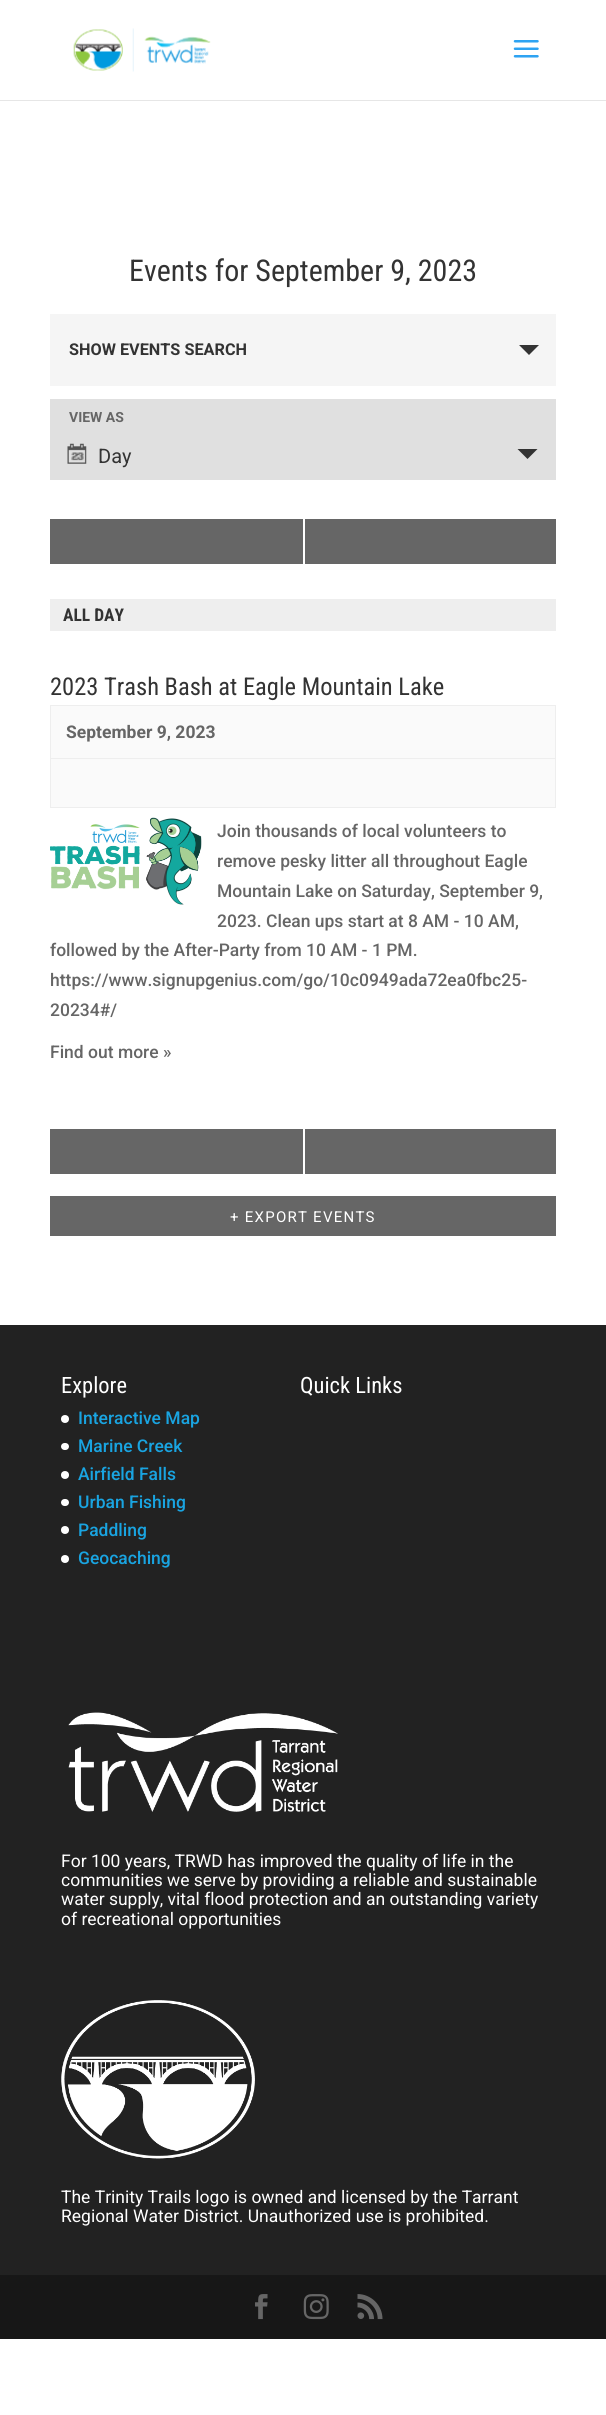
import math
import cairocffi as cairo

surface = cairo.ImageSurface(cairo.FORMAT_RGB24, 606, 2415)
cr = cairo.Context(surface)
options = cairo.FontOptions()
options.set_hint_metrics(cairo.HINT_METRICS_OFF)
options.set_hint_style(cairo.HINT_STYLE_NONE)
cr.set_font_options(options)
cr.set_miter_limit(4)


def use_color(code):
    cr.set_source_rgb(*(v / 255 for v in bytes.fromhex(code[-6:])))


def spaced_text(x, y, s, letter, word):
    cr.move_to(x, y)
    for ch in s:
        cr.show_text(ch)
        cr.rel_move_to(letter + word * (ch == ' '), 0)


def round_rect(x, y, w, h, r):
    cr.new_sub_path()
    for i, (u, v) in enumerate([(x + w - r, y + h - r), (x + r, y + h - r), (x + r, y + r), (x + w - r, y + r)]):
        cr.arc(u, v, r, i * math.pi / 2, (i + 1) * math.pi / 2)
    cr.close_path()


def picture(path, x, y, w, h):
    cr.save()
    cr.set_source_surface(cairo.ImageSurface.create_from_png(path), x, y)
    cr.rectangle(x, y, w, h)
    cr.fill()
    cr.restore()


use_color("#ffffff")
cr.paint()
use_color("#e6e6e6")
cr.rectangle(0, 100, 606, 1)
cr.fill()
picture("img1.png", 73, 28, 138, 44)
picture("img2.png", 513, 40, 26, 18)
cr.select_font_face("Roboto Condensed")
cr.set_font_size(30)
use_color("#333333")
cr.move_to(129, 281)
cr.show_text("Events for September 9, 2023")
use_color("#f5f5f5")
cr.rectangle(50, 314, 506, 72)
cr.fill()
cr.select_font_face("Roboto", cairo.FONT_SLANT_NORMAL, cairo.FONT_WEIGHT_BOLD)
cr.set_font_size(16.25)
use_color("#333333")
cr.move_to(69, 355)
cr.show_text("SHOW EVENTS SEARCH")
cr.new_path()
cr.move_to(519, 345)
cr.line_to(539, 345)
cr.line_to(529, 355)
cr.close_path()
cr.fill()
use_color("#e0e0e0")
cr.rectangle(50, 399, 506, 81)
cr.fill()
cr.set_font_size(14)
use_color("#666666")
cr.move_to(69, 422)
cr.show_text("VIEW AS")
picture("img3.png", 67, 443, 20, 21)
cr.select_font_face("Roboto")
cr.set_font_size(20)
use_color("#333333")
cr.move_to(98, 463)
cr.show_text("Day")
cr.new_path()
cr.move_to(517.5, 449)
cr.line_to(537.5, 449)
cr.line_to(527.5, 459)
cr.close_path()
cr.fill()
use_color("#666666")
cr.rectangle(50, 519, 253, 45)
cr.fill()
cr.rectangle(305, 519, 251, 45)
cr.fill()
use_color("#eeeeee")
cr.rectangle(50, 599, 506, 32)
cr.fill()
cr.select_font_face("Roboto Condensed", cairo.FONT_SLANT_NORMAL, cairo.FONT_WEIGHT_BOLD)
cr.set_font_size(17.5)
use_color("#333333")
cr.move_to(63, 621)
cr.show_text("ALL DAY")
cr.select_font_face("Roboto Condensed")
cr.set_font_size(24.5)
cr.move_to(50, 695)
cr.show_text("2023 Trash Bash at Eagle Mountain Lake")
use_color("#fafafa")
cr.rectangle(50.5, 705.5, 505, 102)
cr.fill_preserve()
use_color("#eeeeee")
cr.set_line_width(1)
cr.stroke()
cr.select_font_face("Roboto", cairo.FONT_SLANT_NORMAL, cairo.FONT_WEIGHT_BOLD)
cr.set_font_size(17.5)
use_color("#666666")
cr.move_to(66, 738)
cr.show_text("September 9, 2023")
use_color("#eeeeee")
cr.rectangle(51, 758, 504, 1)
cr.fill()
picture("img4.png", 50, 817, 152, 88)
cr.select_font_face("Roboto Medium")
use_color("#666666")
cr.move_to(217, 837)
cr.show_text("Join thousands of local volunteers to")
cr.move_to(217, 867)
cr.show_text("remove pesky litter all throughout Eagle")
cr.move_to(217, 897)
cr.show_text("Mountain Lake on Saturday, September 9,")
cr.move_to(217, 927)
cr.show_text("2023. Clean ups start at 8 AM - 10 AM,")
cr.move_to(50, 956)
cr.show_text("followed by the After-Party from 10 AM - 1 PM.")
cr.move_to(50, 986)
cr.show_text("https://www.signupgenius.com/go/10c0949ada72ea0fbc25-")
cr.move_to(50, 1016)
cr.show_text("20234#/")
cr.move_to(50, 1058)
cr.show_text("Find out more »")
cr.rectangle(50, 1129, 253, 45)
cr.fill()
cr.rectangle(305, 1129, 251, 45)
cr.fill()
cr.rectangle(50, 1196, 506, 40)
cr.fill()
cr.select_font_face("Roboto")
cr.set_font_size(15)
use_color("#ffffff")
spaced_text(230, 1222, "+ EXPORT EVENTS", 1.25, 0)
use_color("#222222")
cr.rectangle(0, 1325, 606, 950)
cr.fill()
cr.select_font_face("Roboto Condensed")
cr.set_font_size(22.5)
use_color("#ffffff")
cr.move_to(61, 1393)
cr.show_text("Explore")
cr.new_path()
cr.arc(65, 1419, 4, 0, 2 * math.pi)
cr.fill()
cr.select_font_face("Roboto Medium")
cr.set_font_size(17.5)
use_color("#19a4e1")
cr.move_to(78, 1424)
cr.show_text("Interactive Map")
use_color("#ffffff")
round_rect(61, 1443, 8, 7, 3.5)
cr.fill()
use_color("#19a4e1")
cr.move_to(78, 1452)
cr.show_text("Marine Creek")
use_color("#ffffff")
cr.new_path()
cr.arc(65, 1475, 4, 0, 2 * math.pi)
cr.fill()
use_color("#19a4e1")
cr.move_to(78, 1480)
cr.show_text("Airfield Falls")
use_color("#ffffff")
round_rect(61, 1499, 8, 7, 3.5)
cr.fill()
use_color("#19a4e1")
cr.move_to(78, 1508)
cr.show_text("Urban Fishing")
use_color("#ffffff")
cr.new_path()
cr.arc(65, 1530, 4, 0, 2 * math.pi)
cr.fill()
use_color("#19a4e1")
cr.move_to(78, 1536)
cr.show_text("Paddling")
use_color("#ffffff")
cr.new_path()
cr.arc(65, 1559, 4, 0, 2 * math.pi)
cr.fill()
use_color("#19a4e1")
cr.move_to(78, 1564)
cr.show_text("Geocaching")
cr.select_font_face("Roboto Condensed")
cr.set_font_size(22.5)
use_color("#ffffff")
cr.move_to(300, 1393)
cr.show_text("Quick Links")
picture("img5.png", 68, 1712, 270, 100)
cr.select_font_face("Roboto")
cr.set_font_size(17.5)
cr.move_to(61, 1867)
cr.show_text("For 100 years, TRWD has improved the quality of life in the")
cr.move_to(61, 1886)
cr.show_text("communities we serve by providing a reliable and sustainable")
cr.move_to(61, 1905)
cr.show_text("water supply, vital flood protection and an outstanding variety")
cr.move_to(61, 1925)
cr.show_text("of recreational opportunities")
picture("img6.png", 61, 2000, 194, 159)
cr.move_to(61, 2203)
cr.show_text("The Trinity Trails logo is owned and licensed by the Tarrant")
cr.move_to(61, 2222)
cr.show_text("Regional Water District. Unauthorized use is prohibited.")
use_color("#171717")
cr.rectangle(0, 2275, 606, 64)
cr.fill()
picture("img7.png", 255, 2294, 13, 26)
picture("img8.png", 303, 2294, 26, 26)
picture("img9.png", 357, 2294, 26, 26)
surface.write_to_png("result.png")
